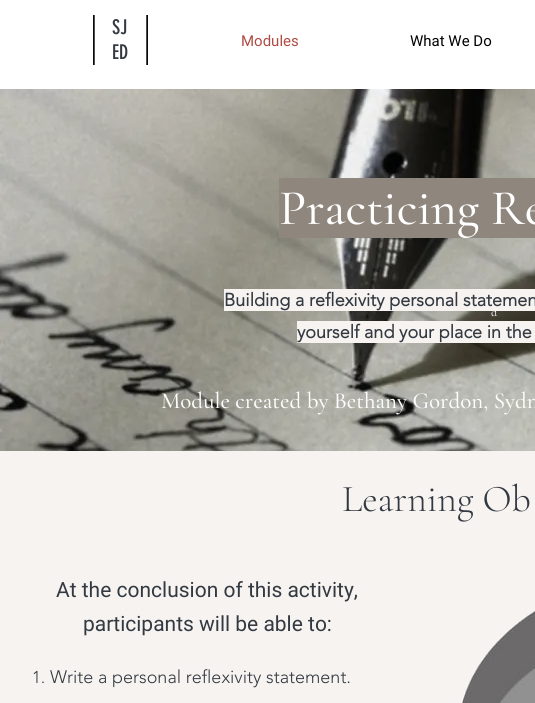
import math
import cairocffi as cairo

surface = cairo.ImageSurface(cairo.FORMAT_RGB24, 535, 703)
cr = cairo.Context(surface)
options = cairo.FontOptions()
options.set_hint_metrics(cairo.HINT_METRICS_OFF)
options.set_hint_style(cairo.HINT_STYLE_NONE)
cr.set_font_options(options)
cr.set_miter_limit(4)


def use_color(code):
    cr.set_source_rgb(*(v / 255 for v in bytes.fromhex(code[-6:])))


def picture(path, x, y, w, h):
    cr.save()
    cr.set_source_surface(cairo.ImageSurface.create_from_png(path), x, y)
    cr.rectangle(x, y, w, h)
    cr.fill()
    cr.restore()


use_color("#f6f3f0")
cr.paint()
use_color("#ffffff")
cr.rectangle(0, 0, 535, 89)
cr.fill()
picture("img1.png", 93, 15, 55, 50)
cr.rectangle(107, 20, 27, 40)
cr.fill()
cr.select_font_face("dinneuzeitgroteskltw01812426")
cr.set_font_size(20)
use_color("#333941")
cr.move_to(112, 34)
cr.show_text("SJ")
cr.move_to(112, 59)
cr.show_text("ED")
cr.select_font_face("Roboto")
cr.set_font_size(15)
use_color("#af4b43")
cr.move_to(241, 46)
cr.show_text("Modules")
use_color("#000000")
cr.move_to(410, 46)
cr.show_text("What We Do")
picture("img2.png", 0, 89, 535, 362)
use_color("#8f867d")
cr.rectangle(279, 178, 256, 60)
cr.fill()
cr.select_font_face("Cormorant Garamond Medium")
cr.set_font_size(50)
use_color("#ffffff")
cr.move_to(279, 224)
cr.show_text("Practicing Re")
cr.set_font_size(12)
cr.move_to(491, 316)
cr.show_text("d")
cr.set_font_size(23)
cr.move_to(161, 408)
cr.show_text("Module created by Bethany Gordon, Sydn")
use_color("#f6f3f0")
cr.rectangle(224, 289, 311, 22)
cr.fill()
cr.select_font_face("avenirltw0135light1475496", cairo.FONT_SLANT_NORMAL, cairo.FONT_WEIGHT_BOLD)
cr.set_font_size(18)
use_color("#333941")
cr.move_to(224, 306)
cr.show_text("Building a reflexivity personal statemen")
use_color("#f6f3f0")
cr.rectangle(297, 321, 238, 22)
cr.fill()
use_color("#333941")
cr.move_to(297, 338)
cr.show_text("yourself and your place in the")
cr.select_font_face("Cormorant Garamond Light")
cr.set_font_size(38)
cr.move_to(342, 511)
cr.show_text("Learning Ob")
cr.select_font_face("Roboto")
cr.set_font_size(21)
cr.move_to(56, 597)
cr.show_text("At the conclusion of this activity,")
cr.move_to(83, 631)
cr.show_text("participants will be able to:")
cr.select_font_face("avenirltw0135light1475496 Light")
cr.set_font_size(17)
cr.move_to(32, 683)
cr.show_text("1.")
cr.set_font_size(18)
cr.move_to(50, 683)
cr.show_text("Write a personal reflexivity statement.")
picture("img3.png", 461, 610, 74, 93)
surface.write_to_png("result.png")
